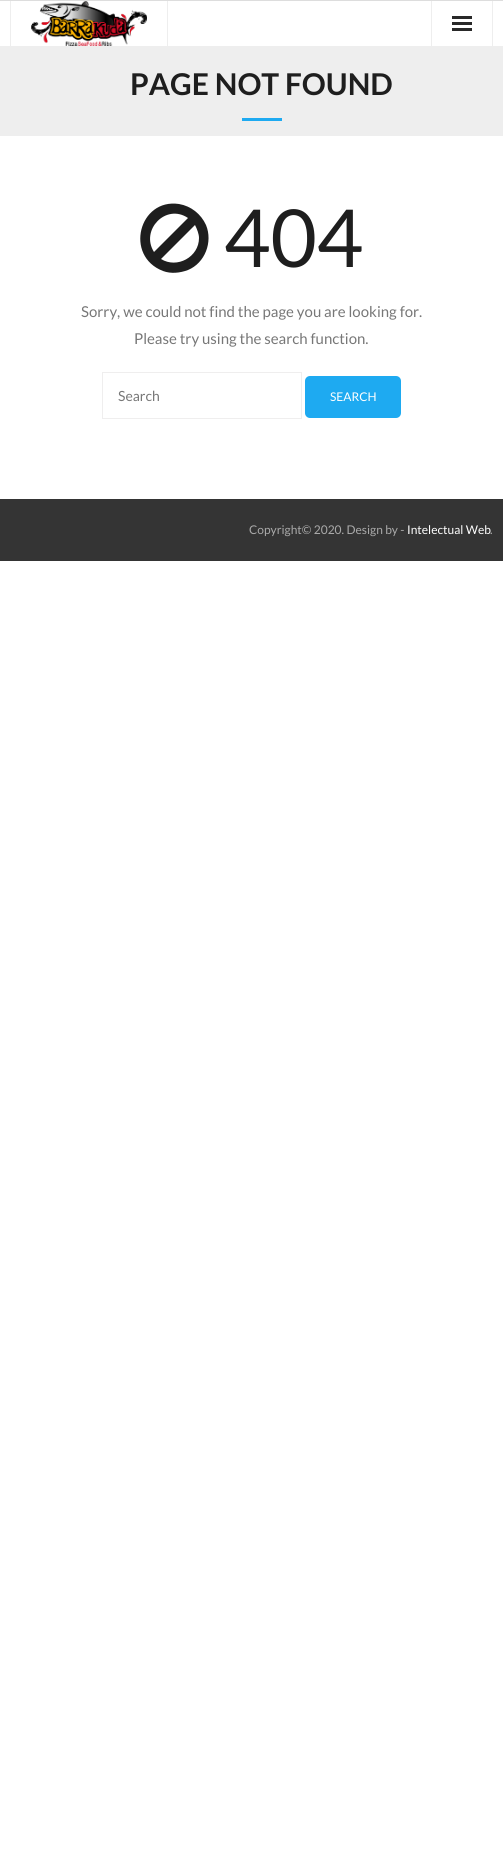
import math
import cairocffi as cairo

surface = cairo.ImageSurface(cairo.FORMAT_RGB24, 503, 1873)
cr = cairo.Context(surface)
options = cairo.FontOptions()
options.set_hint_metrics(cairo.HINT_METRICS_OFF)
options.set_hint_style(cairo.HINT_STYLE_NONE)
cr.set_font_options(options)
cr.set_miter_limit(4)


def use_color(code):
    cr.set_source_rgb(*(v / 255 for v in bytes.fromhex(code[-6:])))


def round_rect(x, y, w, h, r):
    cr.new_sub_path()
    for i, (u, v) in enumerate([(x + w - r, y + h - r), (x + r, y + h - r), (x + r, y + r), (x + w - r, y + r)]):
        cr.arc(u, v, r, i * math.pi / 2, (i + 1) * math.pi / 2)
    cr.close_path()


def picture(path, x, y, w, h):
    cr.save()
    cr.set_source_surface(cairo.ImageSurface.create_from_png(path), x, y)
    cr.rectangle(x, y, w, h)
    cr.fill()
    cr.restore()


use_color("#ffffff")
cr.paint()
use_color("#dddddd")
cr.rectangle(0, 0, 503, 1)
cr.fill()
use_color("#eeeeee")
cr.rectangle(167, 1, 1, 45)
cr.fill()
cr.rectangle(10, 1, 1, 45)
cr.fill()
picture("img1.png", 31, 1, 116, 45)
cr.rectangle(492, 1, 1, 45)
cr.fill()
cr.rectangle(431, 1, 1, 45)
cr.fill()
use_color("#292929")
cr.rectangle(452, 16, 20, 3)
cr.fill()
cr.rectangle(452, 22, 20, 3)
cr.fill()
cr.rectangle(452, 28, 20, 3)
cr.fill()
use_color("#eeeeee")
cr.rectangle(0, 46, 503, 90)
cr.fill()
cr.select_font_face("Lato", cairo.FONT_SLANT_NORMAL, cairo.FONT_WEIGHT_BOLD)
cr.set_font_size(30)
use_color("#1e1e1e")
cr.move_to(130, 95)
cr.show_text("PAGE NOT FOUND")
use_color("#1eaaf1")
cr.rectangle(242, 118, 40, 3)
cr.fill()
use_color("#1e1e1e")
cr.new_path()
cr.move_to(199, 238)
cr.curve_to(199, 234, 197, 229, 195, 225)
cr.line_to(161, 259)
cr.curve_to(177, 269, 199, 257, 199, 238)
cr.close_path()
cr.move_to(154, 252)
cr.line_to(188, 218)
cr.curve_to(166, 203, 140, 230, 154, 252)
cr.close_path()
cr.move_to(206, 225)
cr.curve_to(213, 242, 205, 263, 188, 270)
cr.curve_to(180, 273, 171, 274, 163, 271)
cr.curve_to(124, 256, 139, 198, 179, 204)
cr.curve_to(191, 206, 201, 214, 206, 225)
cr.close_path()
cr.fill()
cr.select_font_face("Lato")
cr.set_font_size(80)
cr.move_to(224, 267)
cr.show_text("404")
cr.set_font_size(15)
use_color("#777777")
cr.move_to(81, 317)
cr.show_text("Sorry, we could not find the page you are looking for.")
cr.move_to(134, 344)
cr.show_text("Please try using the search function.")
cr.rectangle(102.5, 372.5, 199, 46)
use_color("#efeeee")
cr.set_line_width(1)
cr.stroke()
cr.set_font_size(14)
use_color("#777777")
cr.move_to(118, 401)
cr.show_text("Search")
use_color("#1eaaf1")
round_rect(305, 376, 96, 42, 5)
cr.fill()
cr.set_font_size(12)
use_color("#ffffff")
cr.move_to(330, 401)
cr.show_text("SEARCH")
use_color("#343434")
cr.rectangle(0, 499, 503, 62)
cr.fill()
use_color("#aaaaaa")
cr.move_to(249, 534)
cr.show_text("Copyright© 2020. Design by -")
use_color("#ffffff")
cr.move_to(407, 534)
cr.show_text("Intelectual Web")
use_color("#aaaaaa")
cr.move_to(490, 534)
cr.show_text(".")
surface.write_to_png("result.png")
